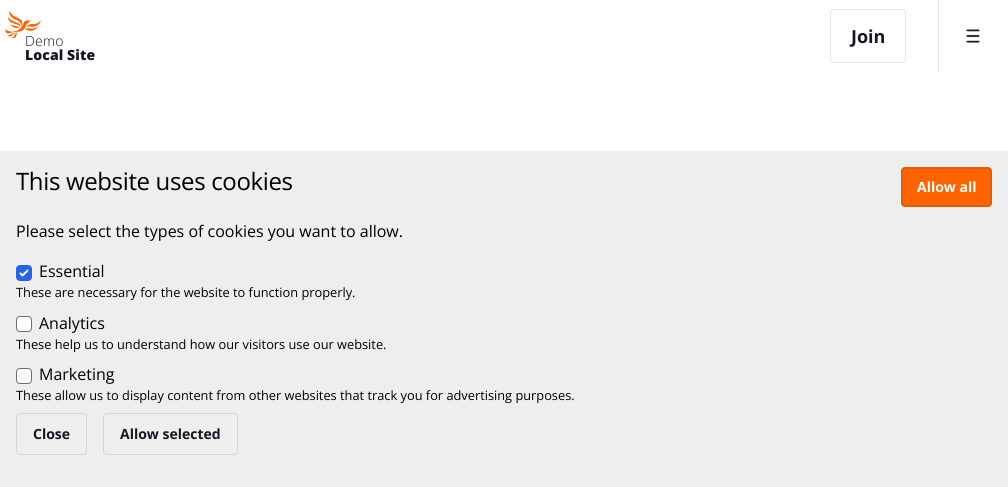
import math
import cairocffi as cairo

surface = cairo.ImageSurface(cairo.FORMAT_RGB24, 1008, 487)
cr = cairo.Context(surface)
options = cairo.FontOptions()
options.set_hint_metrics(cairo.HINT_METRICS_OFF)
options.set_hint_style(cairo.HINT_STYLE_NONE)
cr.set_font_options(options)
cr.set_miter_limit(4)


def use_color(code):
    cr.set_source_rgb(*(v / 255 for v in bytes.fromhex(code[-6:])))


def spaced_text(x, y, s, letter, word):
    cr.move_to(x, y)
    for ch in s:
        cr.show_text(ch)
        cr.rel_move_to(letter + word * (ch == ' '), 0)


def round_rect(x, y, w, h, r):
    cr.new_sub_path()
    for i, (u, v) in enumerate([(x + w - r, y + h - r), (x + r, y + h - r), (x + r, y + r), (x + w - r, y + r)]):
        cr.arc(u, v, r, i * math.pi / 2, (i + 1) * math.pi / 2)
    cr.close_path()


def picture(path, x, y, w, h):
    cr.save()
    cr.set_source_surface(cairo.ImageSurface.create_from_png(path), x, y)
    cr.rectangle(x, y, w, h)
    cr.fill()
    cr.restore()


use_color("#ffffff")
cr.paint()
cr.select_font_face("Open Sans Light")
cr.set_font_size(14)
use_color("#151721")
spaced_text(25, 46, "Demo", 0.1, 0)
picture("img1.png", 5, 10, 36, 29)
cr.select_font_face("Open Sans ExtraBold")
spaced_text(25, 60, "Local Site", 0.1, 0)
round_rect(830.5, 9.5, 75, 53, 3.5)
use_color("#e6e6e6")
cr.set_line_width(1)
cr.stroke()
cr.select_font_face("Open Sans", cairo.FONT_SLANT_NORMAL, cairo.FONT_WEIGHT_BOLD)
cr.set_font_size(18)
use_color("#151721")
cr.move_to(851, 43)
cr.show_text("Join")
use_color("#e6e6e6")
cr.rectangle(938, 0, 1, 72)
cr.fill()
picture("img2.png", 966, 29, 14, 14)
use_color("#eeeeee")
cr.rectangle(0, 151, 1008, 336)
cr.fill()
cr.select_font_face("Open Sans")
cr.set_font_size(24)
use_color("#000000")
spaced_text(16, 190, "This website uses cookies", -0.35, 0)
use_color("#ff6400")
round_rect(902, 168, 89, 38, 3)
cr.fill_preserve()
use_color("#e65a00")
cr.set_line_width(2)
cr.stroke()
cr.select_font_face("Open Sans", cairo.FONT_SLANT_NORMAL, cairo.FONT_WEIGHT_BOLD)
cr.set_font_size(14)
use_color("#ffffff")
cr.move_to(917, 192)
cr.show_text("Allow all")
cr.select_font_face("Open Sans")
cr.set_font_size(16)
use_color("#000000")
cr.move_to(16, 237)
cr.show_text("Please select the types of cookies you want to allow.")
use_color("#2563eb")
round_rect(16, 265, 16, 16, 4)
cr.fill()
picture("img3.png", 19, 269, 10, 8)
use_color("#000000")
cr.move_to(39, 277)
cr.show_text("Essential")
cr.set_font_size(12.8)
cr.move_to(16, 297)
cr.show_text("These are necessary for the website to function properly.")
use_color("#ffffff")
round_rect(16.5, 316.5, 15, 15, 3.5)
cr.fill_preserve()
use_color("#6b7280")
cr.set_line_width(1)
cr.stroke()
cr.set_font_size(16)
use_color("#000000")
cr.move_to(39, 329)
cr.show_text("Analytics")
cr.set_font_size(12.8)
cr.move_to(16, 349)
cr.show_text("These help us to understand how our visitors use our website.")
use_color("#ffffff")
round_rect(16.5, 368.5, 15, 15, 3.5)
cr.fill_preserve()
use_color("#6b7280")
cr.stroke()
cr.set_font_size(16)
use_color("#000000")
cr.move_to(39, 380)
cr.show_text("Marketing")
cr.set_font_size(12.8)
cr.move_to(16, 400)
cr.show_text("These allow us to display content from other websites that track you for advertising purposes.")
round_rect(16.5, 413.5, 70, 41, 3.5)
use_color("#d6d6d6")
cr.stroke()
cr.select_font_face("Open Sans", cairo.FONT_SLANT_NORMAL, cairo.FONT_WEIGHT_BOLD)
cr.set_font_size(14)
use_color("#151721")
cr.move_to(33, 439)
cr.show_text("Close")
round_rect(103.5, 413.5, 134, 41, 3.5)
use_color("#d6d6d6")
cr.stroke()
use_color("#151721")
cr.move_to(120, 439)
cr.show_text("Allow selected")
surface.write_to_png("result.png")
